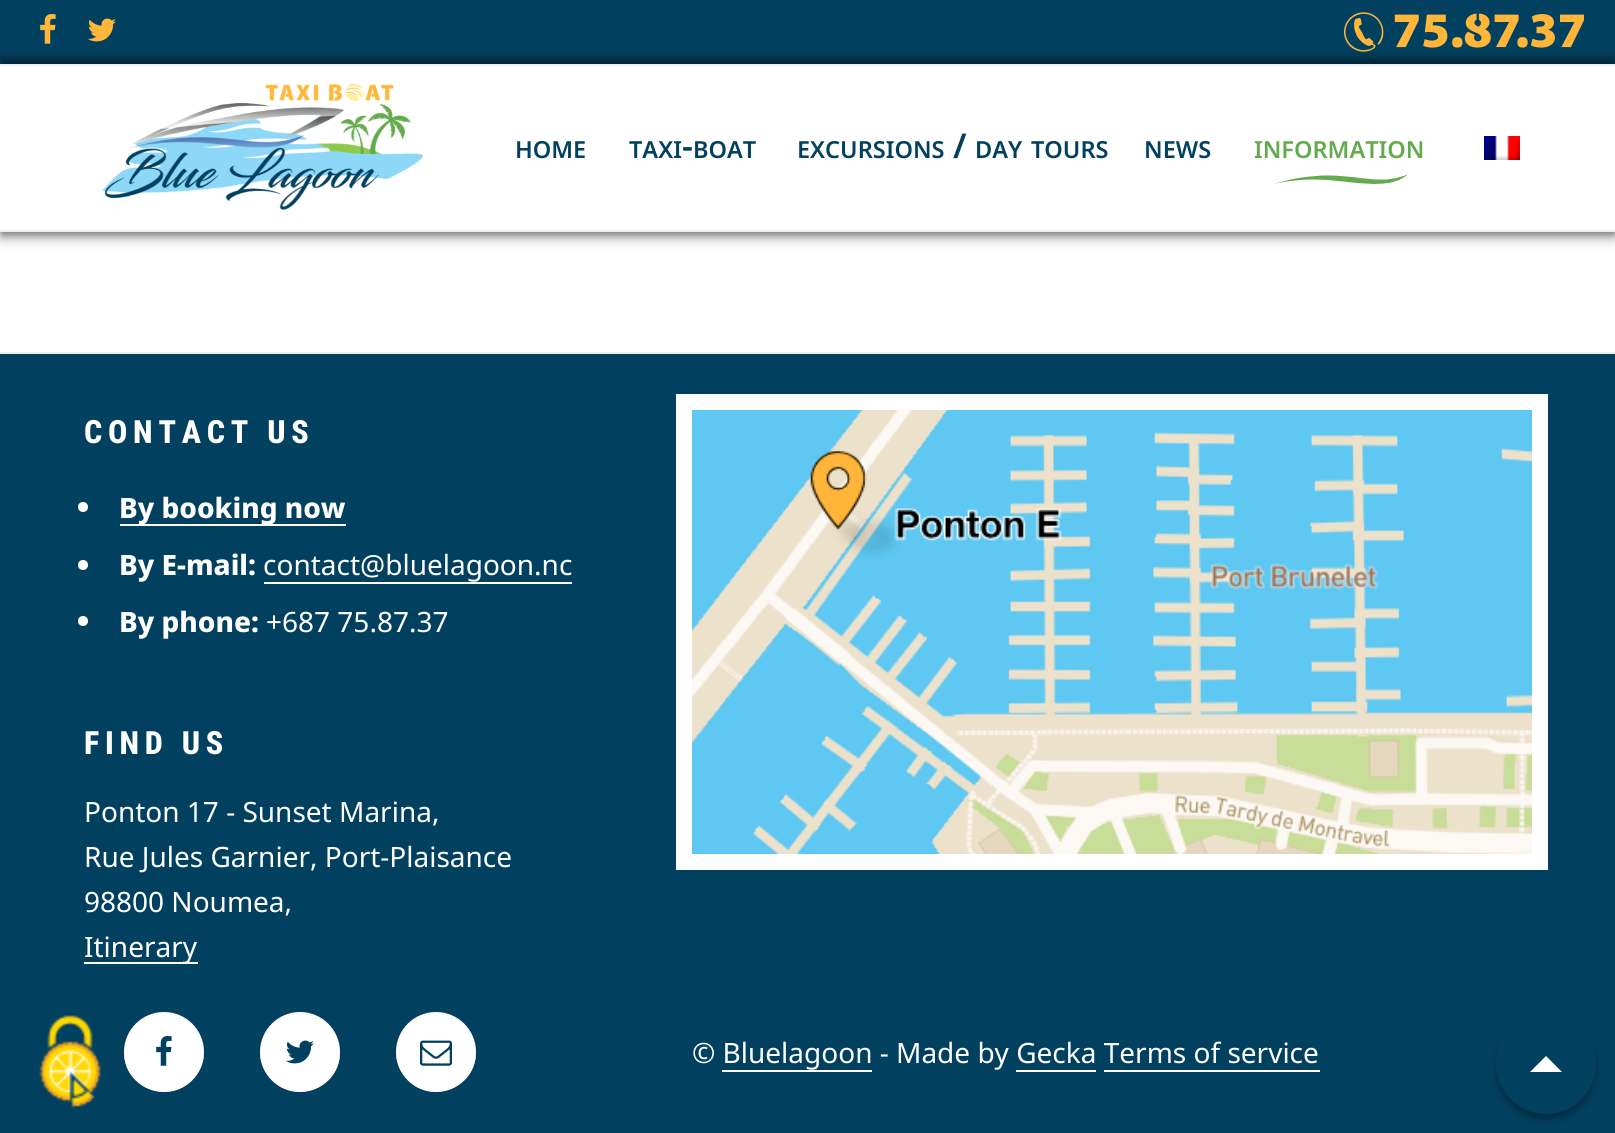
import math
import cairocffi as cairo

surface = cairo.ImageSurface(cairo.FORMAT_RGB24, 1615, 1133)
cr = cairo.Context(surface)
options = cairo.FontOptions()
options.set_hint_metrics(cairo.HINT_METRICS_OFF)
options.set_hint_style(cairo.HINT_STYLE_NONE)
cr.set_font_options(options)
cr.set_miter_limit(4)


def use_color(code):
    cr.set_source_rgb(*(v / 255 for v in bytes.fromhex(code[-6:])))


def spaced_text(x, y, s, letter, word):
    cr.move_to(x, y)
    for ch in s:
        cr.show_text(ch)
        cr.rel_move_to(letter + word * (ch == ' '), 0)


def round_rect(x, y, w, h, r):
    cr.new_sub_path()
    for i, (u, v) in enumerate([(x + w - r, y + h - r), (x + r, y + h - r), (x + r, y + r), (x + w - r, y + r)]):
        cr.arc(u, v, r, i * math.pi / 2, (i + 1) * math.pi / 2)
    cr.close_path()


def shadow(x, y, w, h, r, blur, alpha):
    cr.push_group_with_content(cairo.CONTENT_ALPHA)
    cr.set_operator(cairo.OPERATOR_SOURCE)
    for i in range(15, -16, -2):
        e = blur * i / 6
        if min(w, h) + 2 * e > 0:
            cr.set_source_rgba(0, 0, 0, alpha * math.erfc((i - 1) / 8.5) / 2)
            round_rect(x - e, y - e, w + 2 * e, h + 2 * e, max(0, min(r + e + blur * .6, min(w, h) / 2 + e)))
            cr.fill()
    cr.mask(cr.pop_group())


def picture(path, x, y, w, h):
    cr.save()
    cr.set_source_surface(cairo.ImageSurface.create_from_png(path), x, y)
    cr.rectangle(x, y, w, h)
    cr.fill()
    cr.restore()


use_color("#ffffff")
cr.paint()
use_color("#024060")
cr.rectangle(0, 0, 1615, 64)
cr.fill()
picture("img1.png", 40, 14, 16, 30)
picture("img2.png", 88, 18, 28, 24)
picture("img3.png", 1344, 12, 240, 40)
cr.rectangle(0, 354, 1615, 779)
cr.fill()
picture("img4.png", 39, 1015, 62, 94)
use_color("#000000")
shadow(2, 62, 1612, 164, 0, 4, 0.4)
shadow(0, 62, 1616, 168, 0, 10, 0.12)
shadow(0, 56, 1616, 168, 0, 5, 0.14)
shadow(2, 70, 1612, 164, 0, 4, 0.4)
shadow(0, 66, 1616, 168, 0, 10, 0.12)
shadow(0, 72, 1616, 168, 0, 5, 0.14)
use_color("#ffffff")
cr.rectangle(0, 66, 1615, 164)
cr.fill()
use_color("#eeeeee")
cr.rectangle(0, 64, 1615, 2)
cr.fill()
cr.rectangle(0, 230, 1615, 2)
cr.fill()
picture("img5.png", 102, 84, 321, 126)
cr.select_font_face("Noto Sans SemiBold")
cr.set_font_size(23.5)
use_color("#024060")
cr.move_to(515, 158)
cr.show_text("HOME")
cr.move_to(629, 158)
cr.show_text("TAXI")
cr.set_font_size(34)
cr.move_to(682, 158)
cr.show_text("-")
cr.set_font_size(23.5)
cr.move_to(693, 158)
cr.show_text("BOAT")
cr.move_to(797, 158)
cr.show_text("EXCURSIONS")
cr.set_font_size(34)
cr.move_to(953, 158)
cr.show_text("/")
cr.set_font_size(23.5)
cr.move_to(975, 158)
cr.show_text("DAY")
cr.move_to(1031, 158)
cr.show_text("TOURS")
cr.move_to(1144, 158)
cr.show_text("NEWS")
use_color("#63ab4d")
cr.move_to(1254, 158)
cr.show_text("INFORMATION")
picture("img6.png", 1275, 174, 133, 10)
picture("img7.png", 1484, 136, 36, 24)
use_color("#eeeeee")
cr.rectangle(0, 352, 1615, 2)
cr.fill()
cr.select_font_face("Roboto Condensed ExtraBold")
cr.set_font_size(32)
use_color("#ffffff")
spaced_text(84, 443, "CONTACT US", 5.75, 0)
cr.new_path()
cr.arc(83, 507, 5, 0, 2 * math.pi)
cr.fill()
cr.rectangle(120, 524, 226, 2)
cr.fill()
cr.select_font_face("Noto Sans ExtraBold")
cr.set_font_size(28)
cr.move_to(119, 518)
cr.show_text("By booking now")
cr.new_path()
cr.arc(83, 565, 5, 0, 2 * math.pi)
cr.fill()
cr.move_to(119, 575)
cr.show_text("By E-mail:")
cr.select_font_face("Noto Sans")
cr.move_to(263, 575)
cr.show_text("contact@bluelagoon.nc")
cr.rectangle(264, 582, 308, 2)
cr.fill()
cr.arc(83, 621, 5, 0, 2 * math.pi)
cr.fill()
cr.select_font_face("Noto Sans ExtraBold")
cr.move_to(119, 632)
cr.show_text("By phone:")
cr.select_font_face("Noto Sans")
cr.move_to(266, 632)
cr.show_text("+687 75.87.37")
cr.select_font_face("Roboto Condensed ExtraBold")
cr.set_font_size(32)
spaced_text(84, 754, "FIND US", 5.75, 0)
cr.select_font_face("Noto Sans")
cr.set_font_size(28)
cr.move_to(84, 822)
cr.show_text("Ponton 17 - Sunset Marina,")
cr.move_to(84, 867)
cr.show_text("Rue Jules Garnier, Port-Plaisance")
cr.move_to(84, 912)
cr.show_text("98800 Noumea,")
cr.rectangle(84, 962, 114, 2)
cr.fill()
cr.move_to(84, 957)
cr.show_text("Itinerary")
cr.rectangle(684, 402, 856, 460)
cr.set_line_width(16)
cr.stroke()
picture("img8.png", 692, 410, 840, 444)
cr.arc(164, 1052, 40, 0, 2 * math.pi)
cr.fill()
cr.new_path()
cr.move_to(124, 1051)
cr.curve_to(123, 1091, 175, 1107, 197, 1074)
cr.curve_to(202, 1067, 204, 1059, 204, 1051)
cr.curve_to(203, 1073, 186, 1090, 164, 1090)
cr.curve_to(142, 1090, 125, 1073, 124, 1051)
cr.close_path()
cr.fill()
picture("img9.png", 156, 1036, 16, 30)
cr.arc(300, 1052, 40, 0, 2 * math.pi)
cr.fill()
cr.new_path()
cr.move_to(260, 1051)
cr.curve_to(260, 1059, 262, 1067, 267, 1074)
cr.curve_to(289, 1107, 341, 1091, 340, 1051)
cr.curve_to(339, 1073, 322, 1090, 300, 1090)
cr.curve_to(278, 1090, 261, 1073, 260, 1051)
cr.close_path()
cr.fill()
picture("img10.png", 286, 1040, 28, 24)
cr.arc(436, 1052, 40, 0, 2 * math.pi)
cr.fill()
cr.new_path()
cr.move_to(396, 1051)
cr.curve_to(396, 1059, 398, 1067, 403, 1074)
cr.curve_to(425, 1107, 477, 1091, 476, 1051)
cr.curve_to(475, 1073, 458, 1090, 436, 1090)
cr.curve_to(414, 1090, 397, 1073, 396, 1051)
cr.close_path()
cr.fill()
picture("img11.png", 420, 1040, 32, 26)
cr.move_to(692, 1063)
cr.show_text("© Bluelagoon - Made by Gecka Terms of service")
cr.rectangle(722, 1070, 150, 2)
cr.fill()
cr.rectangle(1016, 1070, 80, 2)
cr.fill()
cr.rectangle(1104, 1070, 216, 2)
cr.fill()
use_color("#000000")
shadow(1498, 1022, 96, 96, 48, 5, 0.4)
use_color("#024060")
cr.arc(1546, 1064, 50, 0, 2 * math.pi)
cr.fill()
use_color("#ffffff")
cr.new_path()
cr.move_to(1562, 1072)
cr.line_to(1530, 1072)
cr.line_to(1546, 1056)
cr.close_path()
cr.fill()
surface.write_to_png("result.png")
